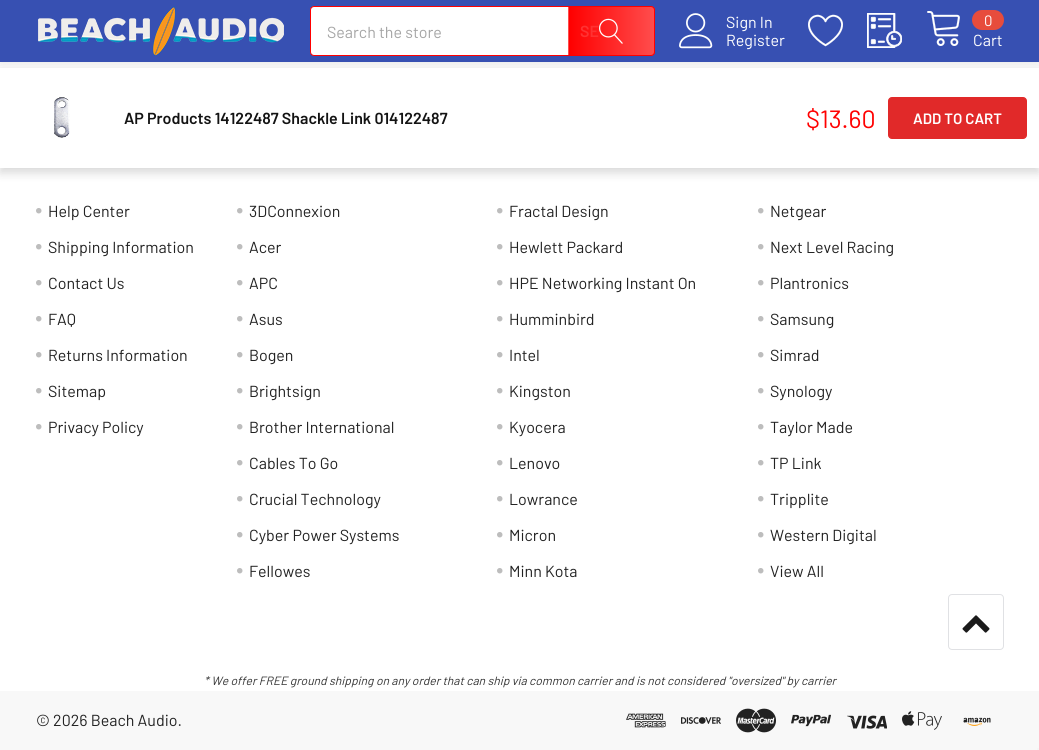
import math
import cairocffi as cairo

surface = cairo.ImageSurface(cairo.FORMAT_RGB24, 1039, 750)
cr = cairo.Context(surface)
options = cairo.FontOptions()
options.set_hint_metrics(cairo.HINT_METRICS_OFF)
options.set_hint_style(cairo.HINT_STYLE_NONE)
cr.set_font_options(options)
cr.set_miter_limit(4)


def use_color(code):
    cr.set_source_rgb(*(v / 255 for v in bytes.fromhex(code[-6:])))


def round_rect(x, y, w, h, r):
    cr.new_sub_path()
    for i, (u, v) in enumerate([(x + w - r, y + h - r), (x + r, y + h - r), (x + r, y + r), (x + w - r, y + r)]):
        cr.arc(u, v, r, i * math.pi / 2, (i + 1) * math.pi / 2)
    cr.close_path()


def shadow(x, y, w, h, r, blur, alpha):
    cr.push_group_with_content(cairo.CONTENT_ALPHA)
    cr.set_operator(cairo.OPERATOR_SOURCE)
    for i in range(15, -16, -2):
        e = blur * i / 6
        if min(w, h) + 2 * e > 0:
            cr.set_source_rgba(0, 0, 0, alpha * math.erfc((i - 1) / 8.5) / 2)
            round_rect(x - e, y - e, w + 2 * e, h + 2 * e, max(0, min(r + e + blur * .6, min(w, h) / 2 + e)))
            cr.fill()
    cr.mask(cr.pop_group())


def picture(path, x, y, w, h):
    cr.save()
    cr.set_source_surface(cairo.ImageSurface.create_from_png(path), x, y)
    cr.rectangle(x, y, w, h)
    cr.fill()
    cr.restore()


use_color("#ffffff")
cr.paint()
use_color("#000000")
shadow(0, 2, 1039, 62, 0, 5, 0.1)
use_color("#3750b2")
cr.rectangle(0, 0, 1039, 62)
cr.fill()
picture("img1.png", 38, 6, 246, 50)
use_color("#ffffff")
round_rect(310.5, 6.5, 344, 49, 3.5)
cr.fill_preserve()
use_color("#ff0000")
cr.set_line_width(1)
cr.stroke()
cr.select_font_face("Barlow")
cr.set_font_size(16)
use_color("#a5a5a5")
cr.move_to(327, 38)
cr.show_text("Search the store")
cr.save()
cr.new_path()
cr.move_to(568, 6)
cr.line_to(651, 6)
cr.curve_to(653, 6, 655, 8, 655, 10)
cr.line_to(655, 52)
cr.curve_to(655, 54, 653, 56, 651, 56)
cr.line_to(568, 56)
cr.close_path()
cr.clip()
gradient = cairo.LinearGradient(569, 31, 654, 31)
gradient.add_color_stop_rgba(0, 1, 0, 0, 1)
gradient.add_color_stop_rgba(1, 1, 0, 0, 0.7)
cr.set_source(gradient)
cr.rectangle(569, 6, 85, 50)
cr.fill()
cr.restore()
cr.select_font_face("Barlow SemiBold")
use_color("#ff3232")
cr.move_to(580, 37)
cr.show_text("SE")
gradient = cairo.LinearGradient(484, 31, 569, 31)
gradient.add_color_stop_rgba(0, 1, 0, 0, 1)
gradient.add_color_stop_rgba(1, 1, 0, 0, 0.7)
cr.set_source(gradient)
cr.rectangle(568, 6, 1, 50)
cr.fill()
cr.save()
cr.new_path()
cr.move_to(568, 6)
cr.line_to(651, 6)
cr.curve_to(653, 6, 655, 8, 655, 10)
cr.line_to(655, 52)
cr.curve_to(655, 54, 653, 56, 651, 56)
cr.line_to(568, 56)
cr.close_path()
cr.clip()
gradient = cairo.LinearGradient(654, 31, 739, 31)
gradient.add_color_stop_rgba(0, 1, 0, 0, 1)
gradient.add_color_stop_rgba(1, 1, 0, 0, 0.7)
cr.set_source(gradient)
cr.rectangle(654, 6, 1, 50)
cr.fill()
cr.restore()
picture("img2.png", 599, 18, 24, 26)
picture("img3.png", 679, 13, 34, 36)
cr.select_font_face("Barlow")
use_color("#ffffff")
cr.move_to(726, 28)
cr.show_text("Sign In")
cr.move_to(726, 46)
cr.show_text("Register")
picture("img4.png", 808, 14, 35, 33)
picture("img5.png", 867, 13, 35, 35)
picture("img6.png", 927, 11, 33, 35)
use_color("#e74c3c")
round_rect(972, 10, 32, 20, 10)
cr.fill()
cr.set_font_size(15)
use_color("#ffffff")
cr.move_to(984, 26)
cr.show_text("0")
cr.set_font_size(16)
cr.move_to(973, 46)
cr.show_text("Cart")
use_color("#000000")
shadow(0, 73, 1039, 100, 0, 5, 0.15)
use_color("#ffffff")
cr.rectangle(0, 68, 1039, 100)
cr.fill()
picture("img7.png", 54, 97, 16, 41)
cr.select_font_face("Barlow SemiBold")
use_color("#131313")
cr.move_to(124, 124)
cr.show_text("AP Products 14122487 Shackle Link 014122487")
cr.select_font_face("Barlow")
cr.set_font_size(25)
use_color("#ff0000")
cr.move_to(806, 128)
cr.show_text("$13.60")
use_color("#e12929")
round_rect(888.5, 97.5, 138, 41, 3.5)
cr.fill_preserve()
cr.stroke()
cr.select_font_face("Barlow SemiBold")
cr.set_font_size(15)
use_color("#ffffff")
cr.move_to(913, 124)
cr.show_text("ADD TO CART")
picture("img8.png", 36, 208, 6, 6)
cr.select_font_face("Barlow")
cr.set_font_size(16)
use_color("#222222")
cr.move_to(48, 217)
cr.show_text("Help Center")
picture("img8.png", 36, 244, 6, 6)
cr.move_to(48, 253)
cr.show_text("Shipping Information")
picture("img8.png", 36, 280, 6, 6)
cr.move_to(48, 289)
cr.show_text("Contact Us")
picture("img8.png", 36, 316, 6, 6)
cr.move_to(48, 325)
cr.show_text("FAQ")
picture("img8.png", 36, 352, 6, 6)
cr.move_to(48, 361)
cr.show_text("Returns Information")
picture("img8.png", 36, 388, 6, 6)
cr.move_to(48, 397)
cr.show_text("Sitemap")
picture("img8.png", 36, 424, 6, 6)
cr.move_to(48, 433)
cr.show_text("Privacy Policy")
picture("img8.png", 237, 208, 6, 6)
cr.move_to(249, 217)
cr.show_text("3DConnexion")
picture("img8.png", 497, 208, 6, 6)
cr.move_to(509, 217)
cr.show_text("Fractal Design")
picture("img8.png", 758, 208, 6, 6)
cr.move_to(770, 217)
cr.show_text("Netgear")
picture("img8.png", 237, 244, 6, 6)
cr.move_to(249, 253)
cr.show_text("Acer")
picture("img8.png", 497, 244, 6, 6)
cr.move_to(509, 253)
cr.show_text("Hewlett Packard")
picture("img8.png", 758, 244, 6, 6)
cr.move_to(770, 253)
cr.show_text("Next Level Racing")
picture("img8.png", 237, 280, 6, 6)
cr.move_to(249, 289)
cr.show_text("APC")
picture("img8.png", 497, 280, 6, 6)
cr.move_to(509, 289)
cr.show_text("HPE Networking Instant On")
picture("img8.png", 758, 280, 6, 6)
cr.move_to(770, 289)
cr.show_text("Plantronics")
picture("img8.png", 237, 316, 6, 6)
cr.move_to(249, 325)
cr.show_text("Asus")
picture("img8.png", 497, 316, 6, 6)
cr.move_to(509, 325)
cr.show_text("Humminbird")
picture("img8.png", 758, 316, 6, 6)
cr.move_to(770, 325)
cr.show_text("Samsung")
picture("img8.png", 237, 352, 6, 6)
cr.move_to(249, 361)
cr.show_text("Bogen")
picture("img8.png", 497, 352, 6, 6)
cr.move_to(509, 361)
cr.show_text("Intel")
picture("img8.png", 758, 352, 6, 6)
cr.move_to(770, 361)
cr.show_text("Simrad")
picture("img8.png", 237, 388, 6, 6)
cr.move_to(249, 397)
cr.show_text("Brightsign")
picture("img8.png", 497, 388, 6, 6)
cr.move_to(509, 397)
cr.show_text("Kingston")
picture("img8.png", 758, 388, 6, 6)
cr.move_to(770, 397)
cr.show_text("Synology")
picture("img8.png", 237, 424, 6, 6)
cr.move_to(249, 433)
cr.show_text("Brother International")
picture("img8.png", 497, 424, 6, 6)
cr.move_to(509, 433)
cr.show_text("Kyocera")
picture("img8.png", 758, 424, 6, 6)
cr.move_to(770, 433)
cr.show_text("Taylor Made")
picture("img8.png", 237, 460, 6, 6)
cr.move_to(249, 469)
cr.show_text("Cables To Go")
picture("img8.png", 497, 460, 6, 6)
cr.move_to(509, 469)
cr.show_text("Lenovo")
picture("img8.png", 758, 460, 6, 6)
cr.move_to(770, 469)
cr.show_text("TP Link")
picture("img8.png", 237, 496, 6, 6)
cr.move_to(249, 505)
cr.show_text("Crucial Technology")
picture("img8.png", 497, 496, 6, 6)
cr.move_to(509, 505)
cr.show_text("Lowrance")
picture("img8.png", 758, 496, 6, 6)
cr.move_to(770, 505)
cr.show_text("Tripplite")
picture("img8.png", 237, 532, 6, 6)
cr.move_to(249, 541)
cr.show_text("Cyber Power Systems")
picture("img8.png", 497, 532, 6, 6)
cr.move_to(509, 541)
cr.show_text("Micron")
picture("img8.png", 758, 532, 6, 6)
cr.move_to(770, 541)
cr.show_text("Western Digital")
picture("img8.png", 237, 568, 6, 6)
cr.move_to(249, 577)
cr.show_text("Fellowes")
picture("img8.png", 497, 568, 6, 6)
cr.move_to(509, 577)
cr.show_text("Minn Kota")
picture("img8.png", 758, 568, 6, 6)
cr.move_to(770, 577)
cr.show_text("View All")
cr.select_font_face("Barlow", cairo.FONT_SLANT_ITALIC)
cr.set_font_size(12)
use_color("#333333")
cr.move_to(204, 685)
cr.show_text("* We offer FREE ground shipping on any order that can ship via common carrier and is not considered \"oversized\" by carrier")
use_color("#f8f8f8")
cr.rectangle(0, 691, 1039, 59)
cr.fill()
cr.select_font_face("Barlow")
cr.set_font_size(16)
use_color("#222222")
cr.move_to(36, 726)
cr.show_text("© 2026 Beach Audio.")
picture("img9.png", 626, 713, 40, 15)
picture("img10.png", 681, 717, 40, 7)
picture("img11.png", 736, 708, 40, 25)
picture("img12.png", 791, 714, 40, 13)
picture("img13.png", 847, 715, 40, 14)
picture("img14.png", 902, 711, 40, 19)
picture("img15.png", 963, 717, 28, 9)
round_rect(948.5, 594.5, 55, 55, 3.5)
use_color("#e0e1e4")
cr.stroke()
picture("img16.png", 962, 615, 28, 18)
use_color("#f5f5f5")
cr.rectangle(1037, 748, 2, 2)
cr.fill()
surface.write_to_png("result.png")
